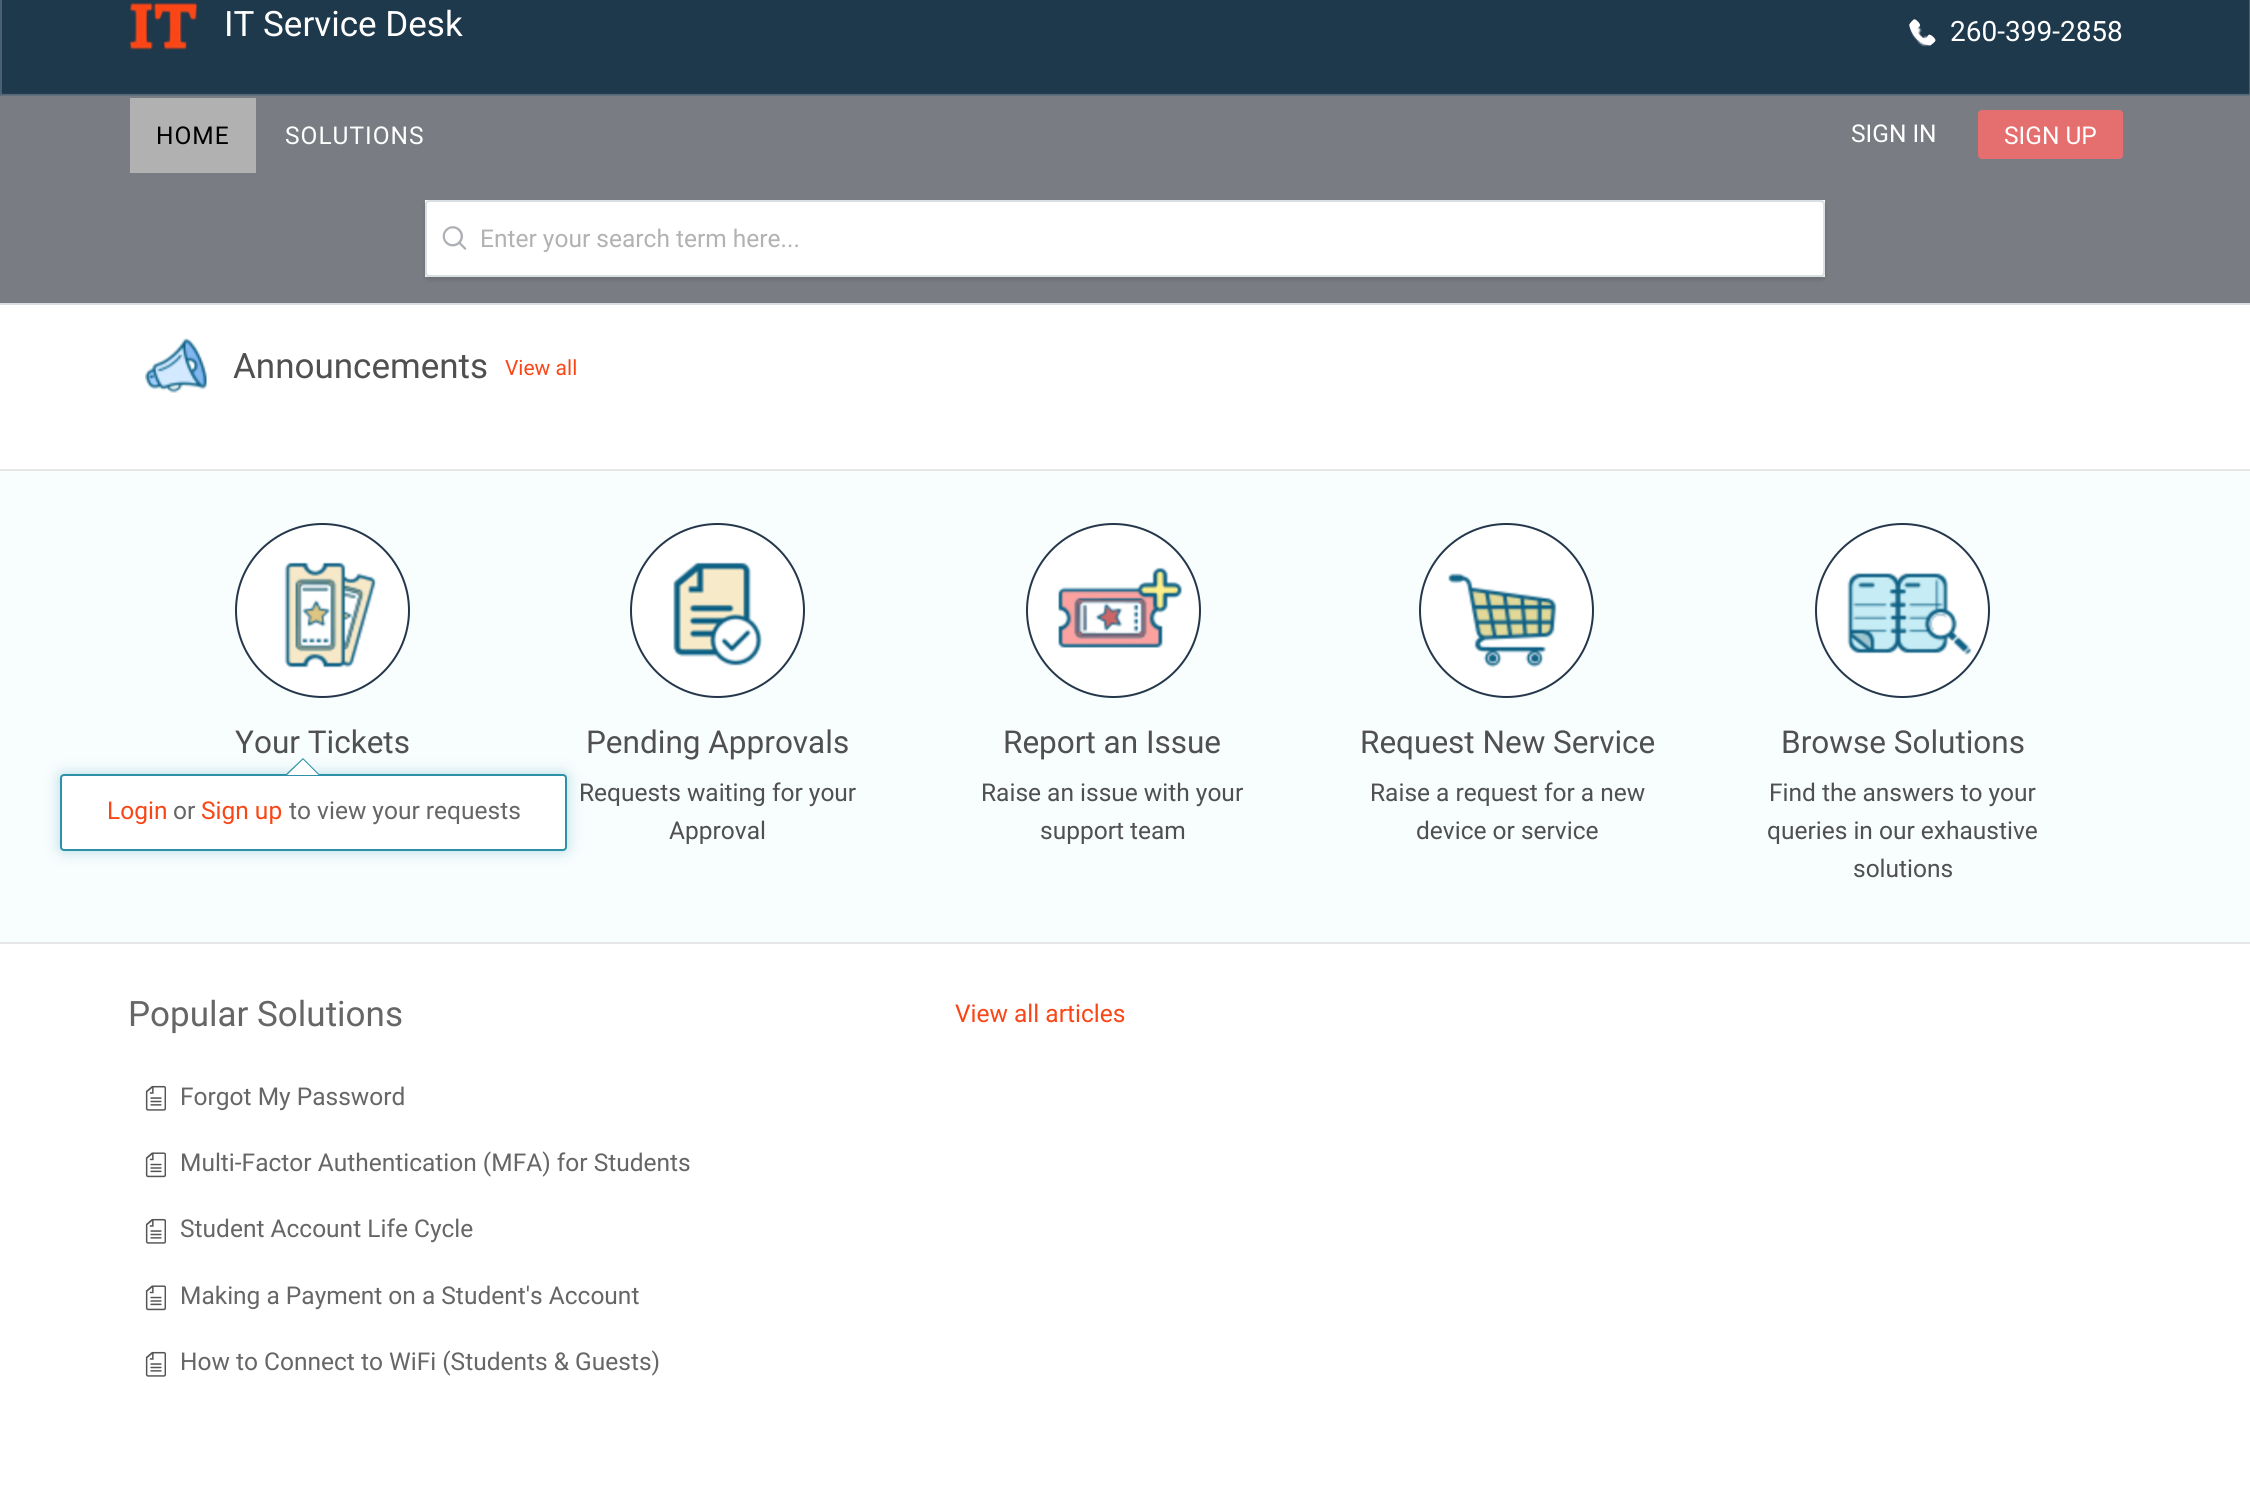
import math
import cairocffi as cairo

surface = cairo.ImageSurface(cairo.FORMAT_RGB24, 2250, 1498)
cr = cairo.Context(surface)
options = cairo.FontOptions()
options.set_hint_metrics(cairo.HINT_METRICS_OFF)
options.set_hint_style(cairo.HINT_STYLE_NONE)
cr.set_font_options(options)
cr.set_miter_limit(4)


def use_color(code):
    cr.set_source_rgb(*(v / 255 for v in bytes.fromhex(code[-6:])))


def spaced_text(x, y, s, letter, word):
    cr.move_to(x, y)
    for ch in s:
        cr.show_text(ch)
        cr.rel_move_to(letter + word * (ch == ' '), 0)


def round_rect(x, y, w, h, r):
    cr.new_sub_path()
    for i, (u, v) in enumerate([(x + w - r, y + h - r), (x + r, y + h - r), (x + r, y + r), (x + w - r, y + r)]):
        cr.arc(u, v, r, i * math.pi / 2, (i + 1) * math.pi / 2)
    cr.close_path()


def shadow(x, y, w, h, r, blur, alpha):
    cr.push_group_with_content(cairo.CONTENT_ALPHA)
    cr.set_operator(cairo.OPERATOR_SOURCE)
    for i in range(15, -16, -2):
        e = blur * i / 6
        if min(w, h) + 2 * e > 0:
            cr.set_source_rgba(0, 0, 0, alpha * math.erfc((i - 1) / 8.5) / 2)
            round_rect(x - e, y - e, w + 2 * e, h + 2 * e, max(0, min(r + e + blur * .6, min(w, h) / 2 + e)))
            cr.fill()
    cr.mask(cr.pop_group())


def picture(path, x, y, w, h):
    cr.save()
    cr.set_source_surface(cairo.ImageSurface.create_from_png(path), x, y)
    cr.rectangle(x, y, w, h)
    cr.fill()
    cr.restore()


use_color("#ffffff")
cr.paint()
use_color("#1e384c")
cr.rectangle(1, -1, 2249, 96)
cr.fill_preserve()
use_color("#4b6070")
cr.stroke()
picture("img1.png", 129, 2, 69, 48)
cr.select_font_face("Roboto")
cr.set_font_size(35)
use_color("#ffffff")
cr.move_to(224, 36)
cr.show_text("IT Service Desk")
picture("img2.png", 1910, 26, 19, 21)
picture("img3.png", 1909, 19, 27, 27)
cr.set_font_size(28)
cr.move_to(1950, 41)
cr.show_text("260-399-2858")
use_color("#cccccc")
shadow(0, 98, 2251, 77, 0, 2.5, 1)
use_color("#797d83")
cr.rectangle(0, 96, 2250, 207)
cr.fill()
use_color("#b1b1b1")
cr.rectangle(130, 98, 126, 75)
cr.fill()
cr.set_font_size(24.5)
use_color("#000000")
spaced_text(156, 144, "HOME", 1, 0)
use_color("#ffffff")
spaced_text(285, 144, "SOLUTIONS", 1, 0)
cr.move_to(1851, 142)
cr.show_text("SIGN IN")
use_color("#e56e6e")
round_rect(1978, 110, 145, 49, 4)
cr.fill()
use_color("#ffffff")
cr.move_to(2004, 144)
cr.show_text("SIGN UP")
use_color("#dadfe3")
cr.rectangle(0, 303, 2250, 2)
cr.fill()
use_color("#ffffff")
cr.rectangle(425, 200, 1400, 77)
cr.fill()
use_color("#000000")
shadow(425, 203, 1400, 77, 4, 2.5, 0.12)
use_color("#ffffff")
round_rect(426, 201, 1398, 75, 3)
cr.fill_preserve()
use_color("#dadfe3")
cr.stroke()
picture("img4.png", 442, 226, 25, 24)
cr.save()
cr.rectangle(480, 224, 1326, 28)
cr.clip()
use_color("#b2b2b2")
cr.move_to(480, 247)
cr.show_text("Enter your search term here...")
cr.restore()
picture("img5.png", 145, 338, 62, 55)
cr.set_font_size(35)
use_color("#505050")
cr.move_to(233, 378)
cr.show_text("Announcements")
cr.set_font_size(21)
use_color("#fa4616")
cr.move_to(505, 375)
cr.show_text("View all")
use_color("#f8fdfe")
cr.rectangle(0, 471, 2250, 471)
cr.fill()
use_color("#e6e6e6")
cr.rectangle(0, 469, 2250, 2)
cr.fill()
cr.rectangle(0, 942, 2250, 2)
cr.fill()
use_color("#ffffff")
cr.arc(322.5, 610.5, 86.5, 0, 2 * math.pi)
cr.fill_preserve()
use_color("#24364a")
cr.stroke()
picture("img6.png", 284, 562, 93, 106)
cr.set_font_size(31.5)
use_color("#505050")
cr.move_to(235, 753)
cr.show_text("Your Tickets")
use_color("#b3dae4")
shadow(60, 774, 507, 77, 4, 7, 1)
use_color("#ffffff")
round_rect(61, 775, 505, 75, 3)
cr.fill_preserve()
use_color("#2d92a8")
cr.stroke()
cr.new_path()
cr.move_to(320, 775)
cr.line_to(285, 775)
cr.line_to(303, 758)
cr.close_path()
cr.fill()
use_color("#ffffff")
cr.new_path()
cr.move_to(318.5, 775)
cr.line_to(287, 775)
cr.line_to(303, 759.5)
cr.close_path()
cr.fill()
cr.set_font_size(24.5)
use_color("#fa4616")
cr.move_to(107, 819)
cr.show_text("Login")
use_color("#666666")
cr.move_to(173, 819)
cr.show_text("or")
use_color("#fa4616")
cr.move_to(201, 819)
cr.show_text("Sign up")
use_color("#666666")
cr.move_to(289, 819)
cr.show_text("to view your requests")
use_color("#ffffff")
cr.new_path()
cr.arc(717.5, 610.5, 86.5, 0, 2 * math.pi)
cr.fill_preserve()
use_color("#24364a")
cr.stroke()
picture("img7.png", 673, 562, 90, 104)
cr.set_font_size(31.5)
use_color("#505050")
cr.move_to(586, 753)
cr.show_text("Pending Approvals")
cr.set_font_size(24.5)
cr.move_to(579, 801)
cr.show_text("Requests waiting for your")
cr.move_to(669, 839)
cr.show_text("Approval")
use_color("#ffffff")
cr.new_path()
cr.arc(1113.5, 610.5, 86.5, 0, 2 * math.pi)
cr.fill_preserve()
use_color("#24364a")
cr.stroke()
picture("img8.png", 1058, 567, 125, 81)
cr.set_font_size(31.5)
use_color("#505050")
cr.move_to(1003, 753)
cr.show_text("Report an Issue")
cr.set_font_size(24.5)
cr.move_to(981, 801)
cr.show_text("Raise an issue with your")
cr.move_to(1040, 839)
cr.show_text("support team")
use_color("#ffffff")
cr.new_path()
cr.arc(1506.5, 610.5, 86.5, 0, 2 * math.pi)
cr.fill_preserve()
use_color("#24364a")
cr.stroke()
picture("img9.png", 1448, 573, 109, 95)
cr.set_font_size(31.5)
use_color("#505050")
cr.move_to(1360, 753)
cr.show_text("Request New Service")
cr.set_font_size(24.5)
cr.move_to(1370, 801)
cr.show_text("Raise a request for a new")
cr.move_to(1416, 839)
cr.show_text("device or service")
use_color("#ffffff")
cr.new_path()
cr.arc(1902.5, 610.5, 86.5, 0, 2 * math.pi)
cr.fill_preserve()
use_color("#24364a")
cr.stroke()
picture("img10.png", 1847, 572, 125, 83)
cr.set_font_size(31.5)
use_color("#505050")
cr.move_to(1781, 753)
cr.show_text("Browse Solutions")
cr.set_font_size(24.5)
cr.move_to(1769, 801)
cr.show_text("Find the answers to your")
cr.move_to(1767, 839)
cr.show_text("queries in our exhaustive")
cr.move_to(1853, 877)
cr.show_text("solutions")
cr.set_font_size(35)
use_color("#666666")
cr.move_to(128, 1026)
cr.show_text("Popular Solutions")
cr.set_font_size(24.5)
use_color("#fa4616")
cr.move_to(955, 1022)
cr.show_text("View all articles")
picture("img11.png", 145, 1085, 21, 26)
use_color("#666666")
cr.move_to(180, 1105)
cr.show_text("Forgot My Password")
picture("img12.png", 145, 1152, 21, 26)
cr.move_to(180, 1171)
cr.show_text("Multi-Factor Authentication (MFA) for Students")
picture("img11.png", 145, 1218, 21, 26)
cr.move_to(180, 1237)
cr.show_text("Student Account Life Cycle")
picture("img12.png", 145, 1285, 21, 26)
cr.move_to(180, 1304)
cr.show_text("Making a Payment on a Student's Account")
picture("img11.png", 145, 1351, 21, 26)
cr.move_to(180, 1370)
cr.show_text("How to Connect to WiFi (Students & Guests)")
surface.write_to_png("result.png")
